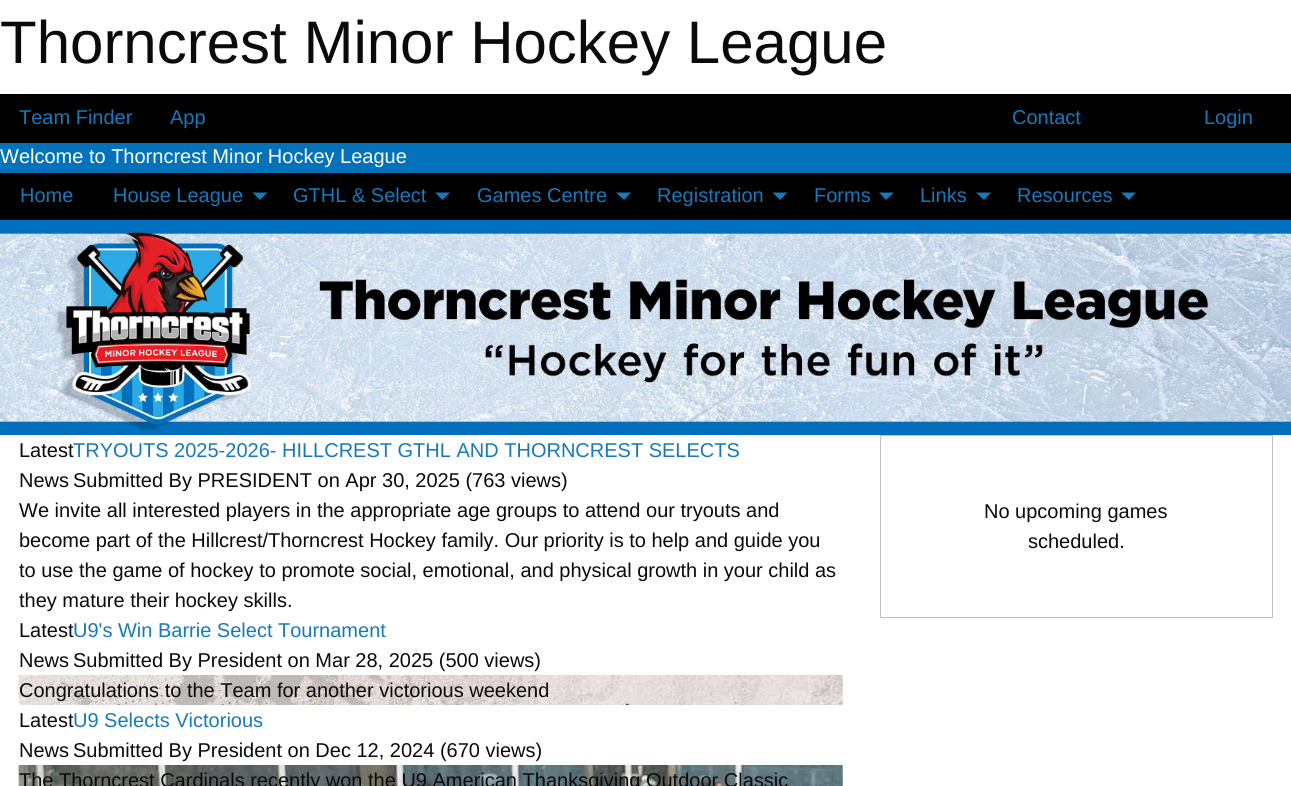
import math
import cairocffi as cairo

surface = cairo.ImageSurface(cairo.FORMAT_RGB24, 1291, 786)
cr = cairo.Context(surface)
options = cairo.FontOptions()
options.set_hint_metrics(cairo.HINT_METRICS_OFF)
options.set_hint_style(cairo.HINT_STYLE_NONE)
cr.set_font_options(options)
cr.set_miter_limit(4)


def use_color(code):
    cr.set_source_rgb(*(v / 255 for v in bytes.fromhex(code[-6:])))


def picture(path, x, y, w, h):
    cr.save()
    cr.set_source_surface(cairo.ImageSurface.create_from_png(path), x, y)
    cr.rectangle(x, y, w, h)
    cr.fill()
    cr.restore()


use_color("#ffffff")
cr.paint()
cr.select_font_face("Liberation Sans")
cr.set_font_size(60)
use_color("#0a0a0a")
cr.move_to(0, 63)
cr.show_text("Thorncrest Minor Hockey League")
use_color("#000000")
cr.rectangle(0, 94, 1291, 126)
cr.fill()
cr.set_font_size(20)
use_color("#1779ba")
cr.move_to(19, 124)
cr.show_text("Team Finder")
cr.move_to(170, 124)
cr.show_text("App")
cr.move_to(1012, 124)
cr.show_text("Contact")
cr.move_to(1204, 124)
cr.show_text("Login")
use_color("#0472bb")
cr.rectangle(0, 143, 1291, 30)
cr.fill()
use_color("#ffffff")
cr.move_to(0, 163)
cr.show_text("Welcome to Thorncrest Minor Hockey League")
use_color("#1779ba")
cr.move_to(20, 202)
cr.show_text("Home")
cr.move_to(113, 202)
cr.show_text("House League")
cr.new_path()
cr.move_to(252.5, 192.5)
cr.line_to(267.5, 192.5)
cr.line_to(260, 200)
cr.close_path()
cr.fill()
cr.move_to(293, 202)
cr.show_text("GTHL & Select")
cr.new_path()
cr.move_to(435, 192.5)
cr.line_to(450, 192.5)
cr.line_to(442.5, 200)
cr.close_path()
cr.fill()
cr.move_to(477, 202)
cr.show_text("Games Centre")
cr.new_path()
cr.move_to(616, 192.5)
cr.line_to(631, 192.5)
cr.line_to(624, 200)
cr.close_path()
cr.fill()
cr.move_to(657, 202)
cr.show_text("Registration")
cr.new_path()
cr.move_to(772.5, 192.5)
cr.line_to(787.5, 192.5)
cr.line_to(780, 200)
cr.close_path()
cr.fill()
cr.move_to(814, 202)
cr.show_text("Forms")
cr.new_path()
cr.move_to(879, 192.5)
cr.line_to(894, 192.5)
cr.line_to(886, 200)
cr.close_path()
cr.fill()
cr.move_to(920, 202)
cr.show_text("Links")
cr.new_path()
cr.move_to(976, 192.5)
cr.line_to(991, 192.5)
cr.line_to(984, 200)
cr.close_path()
cr.fill()
cr.move_to(1017, 202)
cr.show_text("Resources")
cr.new_path()
cr.move_to(1121, 192.5)
cr.line_to(1136, 192.5)
cr.line_to(1129, 200)
cr.close_path()
cr.fill()
picture("img1.png", 0, 220, 1291, 215)
use_color("#0a0a0a")
cr.move_to(19, 457)
cr.show_text("Latest")
cr.move_to(19, 487)
cr.show_text("News")
use_color("#1779ba")
cr.move_to(73, 457)
cr.show_text("TRYOUTS 2025-2026- HILLCREST GTHL AND THORNCREST SELECTS")
use_color("#0a0a0a")
cr.move_to(73, 487)
cr.show_text("Submitted By PRESIDENT on Apr 30, 2025 (763 views)")
cr.move_to(19, 517)
cr.show_text("We invite all interested players in the appropriate age groups to attend our tryouts and")
cr.move_to(19, 547)
cr.show_text("become part of the Hillcrest/Thorncrest Hockey family. Our priority is to help and guide you")
cr.move_to(19, 577)
cr.show_text("to use the game of hockey to promote social, emotional, and physical growth in your child as")
cr.move_to(19, 607)
cr.show_text("they mature their hockey skills.")
cr.move_to(19, 637)
cr.show_text("Latest")
cr.move_to(19, 667)
cr.show_text("News")
use_color("#1779ba")
cr.move_to(73, 637)
cr.show_text("U9's Win Barrie Select Tournament")
use_color("#0a0a0a")
cr.move_to(73, 667)
cr.show_text("Submitted By President on Mar 28, 2025 (500 views)")
picture("img2.png", 18, 675, 825, 30)
picture("img3.png", 18, 675, 825, 30)
cr.move_to(19, 697)
cr.show_text("Congratulations to the Team for another victorious weekend")
cr.move_to(19, 727)
cr.show_text("Latest")
cr.move_to(19, 757)
cr.show_text("News")
use_color("#1779ba")
cr.move_to(73, 727)
cr.show_text("U9 Selects Victorious")
use_color("#0a0a0a")
cr.move_to(73, 757)
cr.show_text("Submitted By President on Dec 12, 2024 (670 views)")
picture("img4.png", 18, 765, 825, 21)
picture("img5.png", 18, 765, 825, 21)
cr.move_to(19, 787)
cr.show_text("The Thorncrest Cardinals recently won the U9 American Thanksgiving Outdoor Classic")
cr.rectangle(880.5, 435.5, 392, 182)
use_color("#c2c2c2")
cr.set_line_width(1)
cr.stroke()
use_color("#0a0a0a")
cr.move_to(984, 518)
cr.show_text("No upcoming games")
cr.move_to(1028, 548)
cr.show_text("scheduled.")
surface.write_to_png("result.png")
